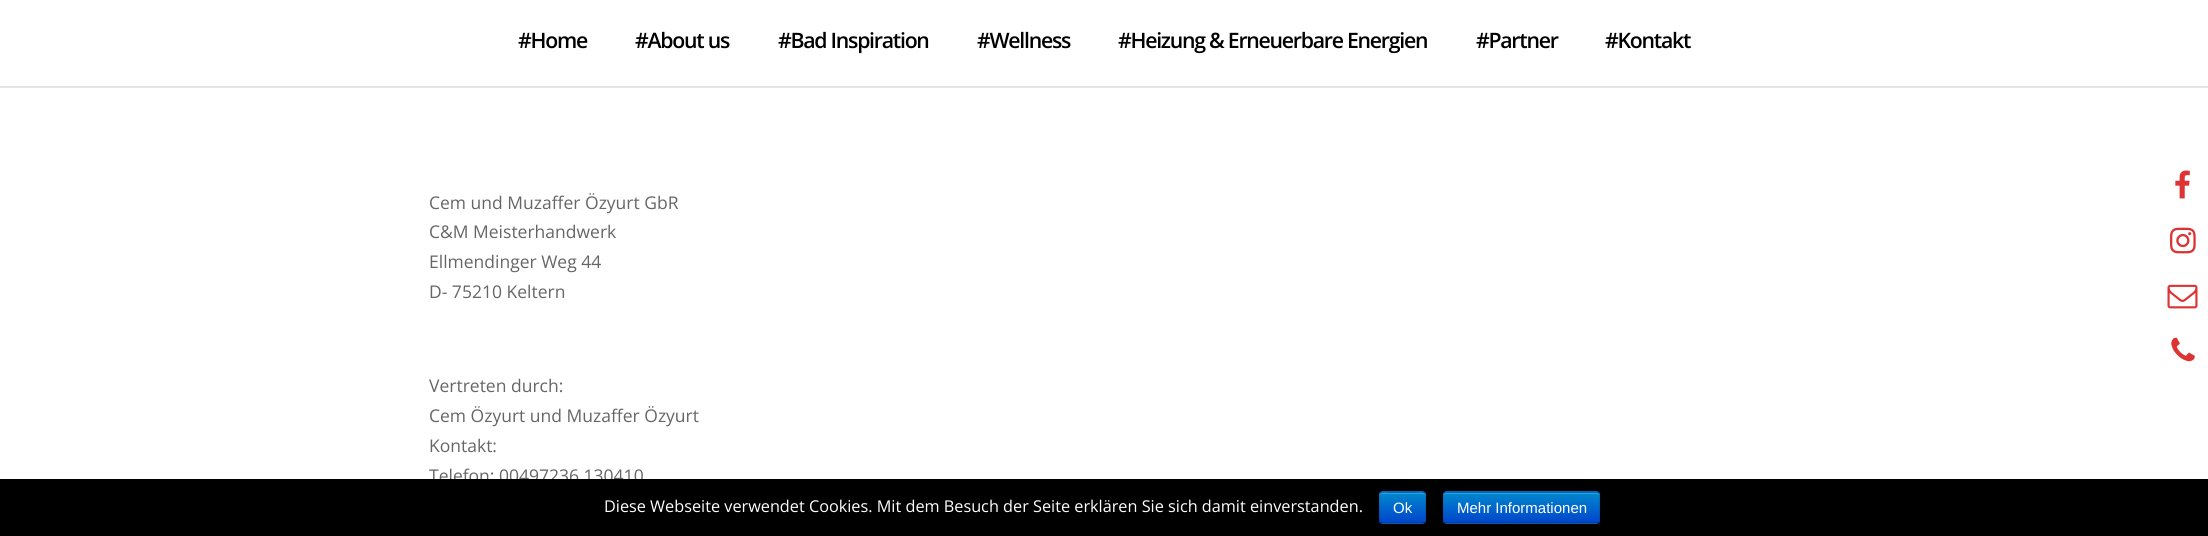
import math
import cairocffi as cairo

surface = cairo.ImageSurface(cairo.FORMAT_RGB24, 2208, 536)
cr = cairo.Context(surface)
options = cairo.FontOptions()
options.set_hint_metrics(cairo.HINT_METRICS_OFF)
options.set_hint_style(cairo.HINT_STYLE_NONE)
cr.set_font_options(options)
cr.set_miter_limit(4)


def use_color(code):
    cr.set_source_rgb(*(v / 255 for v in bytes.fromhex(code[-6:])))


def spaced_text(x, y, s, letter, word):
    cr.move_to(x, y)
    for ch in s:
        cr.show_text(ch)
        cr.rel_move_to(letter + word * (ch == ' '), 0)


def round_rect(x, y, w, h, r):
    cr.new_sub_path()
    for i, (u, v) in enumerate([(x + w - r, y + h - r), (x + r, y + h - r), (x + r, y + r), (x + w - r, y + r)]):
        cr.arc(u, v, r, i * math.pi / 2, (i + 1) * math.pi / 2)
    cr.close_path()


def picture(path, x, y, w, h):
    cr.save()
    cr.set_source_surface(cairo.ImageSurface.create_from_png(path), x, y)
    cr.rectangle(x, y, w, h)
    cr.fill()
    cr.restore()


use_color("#ffffff")
cr.paint()
use_color("#e6e6e6")
cr.new_path()
cr.move_to(0, 86)
cr.line_to(0, 88)
cr.line_to(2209, 88)
cr.line_to(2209, 1)
cr.line_to(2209, 86)
cr.close_path()
cr.fill()
cr.select_font_face("Open Sans SemiBold")
cr.set_font_size(21.25)
use_color("#000000")
spaced_text(518, 48, "#Home", -1.25, 0)
spaced_text(635, 48, "#About us", -1.25, 0)
spaced_text(778, 48, "#Bad Inspiration", -1.25, 0)
spaced_text(977, 48, "#Wellness", -1.25, 0)
spaced_text(1118, 48, "#Heizung & Erneuerbare Energien", -1.25, 0)
spaced_text(1476, 48, "#Partner", -1.25, 0)
spaced_text(1605, 48, "#Kontakt", -1.25, 0)
cr.select_font_face("Open Sans")
cr.set_font_size(17.5)
use_color("#666666")
cr.move_to(429, 209)
cr.show_text("Cem und Muzaffer Özyurt GbR")
cr.move_to(429, 238)
cr.show_text("C&M Meisterhandwerk")
cr.move_to(429, 268)
cr.show_text("Ellmendinger Weg 44")
cr.move_to(429, 298)
cr.show_text("D- 75210 Keltern")
cr.move_to(429, 392)
cr.show_text("Vertreten durch:")
cr.move_to(429, 422)
cr.show_text("Cem Özyurt und Muzaffer Özyurt")
cr.move_to(429, 452)
cr.show_text("Kontakt:")
cr.move_to(429, 482)
cr.show_text("Telefon: 00497236 130410")
picture("img1.png", 2175, 170, 15, 29)
picture("img2.png", 2170, 227, 26, 27)
picture("img3.png", 2167, 284, 31, 25)
picture("img4.png", 2171, 337, 24, 25)
use_color("#000000")
cr.rectangle(0, 479, 2208, 57)
cr.fill()
cr.set_font_size(16.25)
use_color("#ffffff")
cr.move_to(604, 512)
cr.show_text("Diese Webseite verwendet Cookies. Mit dem Besuch der Seite erklären Sie sich damit einverstanden.")
use_color("#006dcc")
round_rect(1379, 491, 47, 33, 4)
cr.fill()
cr.save()
round_rect(1379, 491, 47, 33, 4)
cr.clip()
gradient = cairo.LinearGradient(1403, 493, 1403, 523)
gradient.add_color_stop_rgba(0, 0, 0.533, 0.8, 1)
gradient.add_color_stop_rgba(1, 0, 0.267, 0.8, 1)
cr.set_source(gradient)
cr.rectangle(1379, 493, 47, 30)
cr.fill()
cr.restore()
use_color("#339fd6")
cr.new_path()
cr.move_to(1382, 494)
cr.line_to(1422, 494)
cr.curve_to(1424, 494, 1425, 495, 1425, 496)
cr.curve_to(1425, 491, 1419, 493, 1416, 493)
cr.line_to(1389, 493)
cr.curve_to(1386, 493, 1380, 491, 1380, 496)
cr.curve_to(1380, 495, 1381, 494, 1382, 494)
cr.close_path()
cr.fill()
cr.new_path()
cr.move_to(1424.5, 522)
cr.line_to(1422.5, 523)
cr.line_to(1382.5, 523)
cr.line_to(1380.5, 522)
cr.set_source_rgba(0, 0, 0, 0.25)
cr.set_line_width(1.2)
cr.stroke()
cr.new_path()
cr.move_to(1380.5, 522)
cr.curve_to(1378, 520, 1379.5, 510.5, 1379.5, 507.5)
cr.curve_to(1379.5, 493, 1376, 492, 1389, 492)
cr.line_to(1416, 492)
cr.curve_to(1429, 492, 1425.5, 493, 1425.5, 507.5)
cr.curve_to(1425.5, 510.5, 1427, 520, 1424.5, 522)
cr.set_source_rgba(0, 0, 0, 0.1)
cr.stroke()
cr.select_font_face("Liberation Sans")
cr.set_font_size(15)
use_color("#ffffff")
cr.move_to(1393, 513)
cr.show_text("Ok")
use_color("#006dcc")
round_rect(1443, 491, 157, 33, 4)
cr.fill()
cr.save()
round_rect(1443, 491, 157, 33, 4)
cr.clip()
gradient = cairo.LinearGradient(1521, 493, 1521, 523)
gradient.add_color_stop_rgba(0, 0, 0.533, 0.8, 1)
gradient.add_color_stop_rgba(1, 0, 0.267, 0.8, 1)
cr.set_source(gradient)
cr.rectangle(1443, 493, 157, 30)
cr.fill()
cr.restore()
use_color("#339fd6")
cr.new_path()
cr.move_to(1446, 494)
cr.line_to(1596, 494)
cr.curve_to(1598, 494, 1599, 495, 1599, 496)
cr.curve_to(1599, 494, 1598, 493, 1596, 493)
cr.line_to(1446, 493)
cr.curve_to(1445, 493, 1444, 494, 1444, 496)
cr.curve_to(1444, 495, 1445, 494, 1446, 494)
cr.close_path()
cr.fill()
cr.new_path()
cr.move_to(1598.5, 522)
cr.line_to(1596, 523)
cr.line_to(1446, 523)
cr.line_to(1444, 522)
cr.set_source_rgba(0, 0, 0, 0.25)
cr.stroke()
cr.new_path()
cr.move_to(1444, 522)
cr.curve_to(1442, 520, 1443, 510.5, 1443, 507.5)
cr.line_to(1443, 499)
cr.curve_to(1443, 497, 1442.5, 492, 1446, 492)
cr.line_to(1596, 492)
cr.curve_to(1600, 492, 1599.5, 497, 1599.5, 499)
cr.line_to(1599.5, 507.5)
cr.curve_to(1599.5, 510.5, 1600.5, 520, 1598.5, 522)
cr.set_source_rgba(0, 0, 0, 0.1)
cr.stroke()
use_color("#ffffff")
cr.move_to(1457, 513)
cr.show_text("Mehr Informationen")
surface.write_to_png("result.png")
